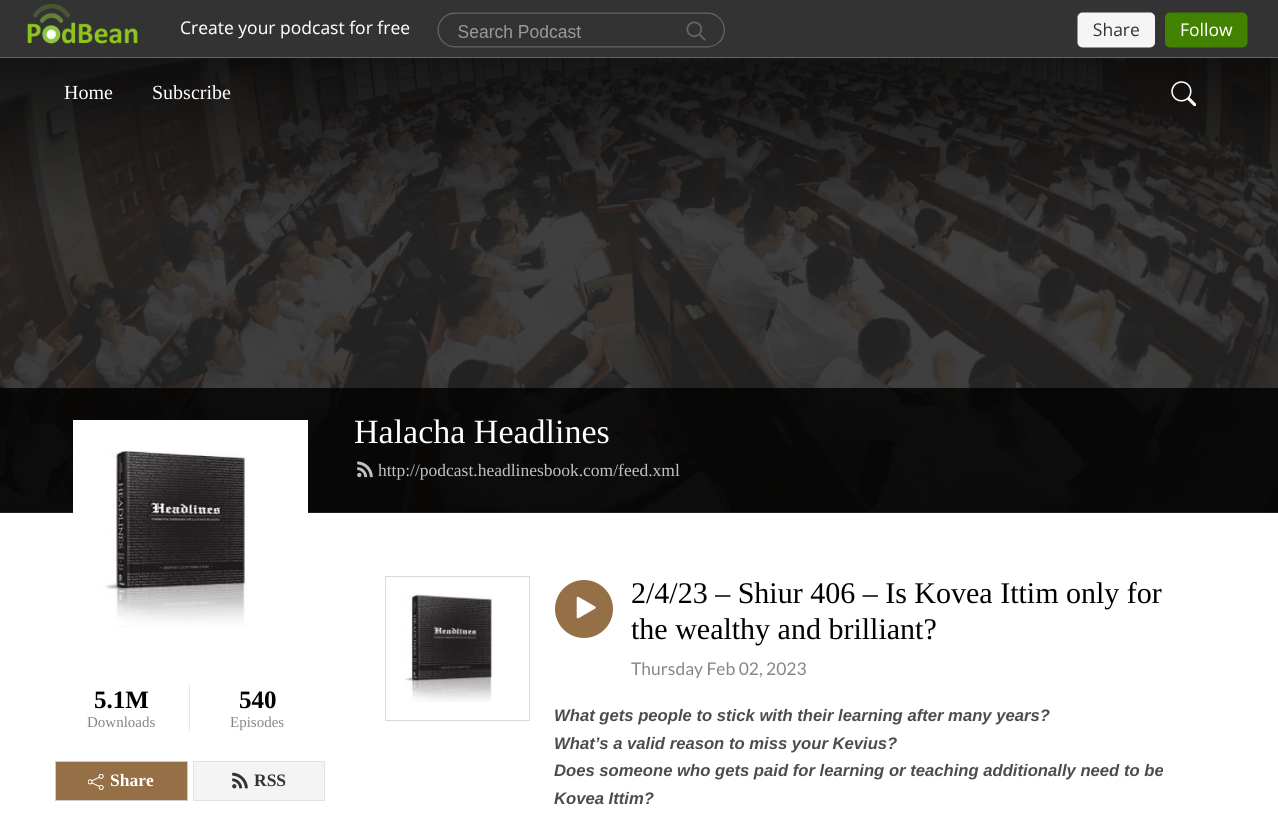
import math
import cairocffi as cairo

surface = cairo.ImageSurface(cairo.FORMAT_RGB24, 1278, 821)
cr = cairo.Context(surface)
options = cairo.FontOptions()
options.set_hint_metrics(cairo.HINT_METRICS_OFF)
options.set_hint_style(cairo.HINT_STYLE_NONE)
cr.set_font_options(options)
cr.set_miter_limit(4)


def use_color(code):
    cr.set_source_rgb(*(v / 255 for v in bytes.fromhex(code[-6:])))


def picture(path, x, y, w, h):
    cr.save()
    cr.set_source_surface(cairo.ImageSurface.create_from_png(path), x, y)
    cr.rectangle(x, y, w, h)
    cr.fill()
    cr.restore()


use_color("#ffffff")
cr.paint()
use_color("#333333")
cr.rectangle(0, 0, 1278, 4)
cr.fill()
picture("img1.png", 0, 4, 1278, 54)
picture("img3.png", 0, 58, 1278, 455)
cr.select_font_face("Liberation Serif")
cr.set_font_size(20)
use_color("#ffffff")
cr.move_to(64, 99)
cr.show_text("Home")
cr.move_to(152, 99)
cr.show_text("Subscribe")
picture("img2.png", 1171, 81, 25, 25)
cr.set_source_rgba(0, 0, 0, 0.8)
cr.rectangle(0, 388, 1278, 125)
cr.fill()
cr.set_font_size(34)
use_color("#ffffff")
cr.move_to(354, 443)
cr.show_text("Halacha Headlines")
picture("img4.png", 357, 461, 16, 17)
cr.set_font_size(17.5)
use_color("#c2c2c2")
cr.move_to(378, 476)
cr.show_text("http://podcast.headlinesbook.com/feed.xml")
cr.rectangle(74.5, 421.5, 232, 232)
use_color("#ffffff")
cr.set_line_width(3)
cr.stroke()
picture("img5.png", 76, 423, 229, 204)
cr.select_font_face("Liberation Serif", cairo.FONT_SLANT_NORMAL, cairo.FONT_WEIGHT_BOLD)
cr.set_font_size(25)
use_color("#000000")
cr.move_to(94, 708)
cr.show_text("5.1M")
cr.select_font_face("Liberation Serif")
cr.set_font_size(15)
use_color("#868686")
cr.move_to(87, 727)
cr.show_text("Downloads")
use_color("#e6e6e6")
cr.rectangle(189, 685, 1, 46)
cr.fill()
cr.select_font_face("Liberation Serif", cairo.FONT_SLANT_NORMAL, cairo.FONT_WEIGHT_BOLD)
cr.set_font_size(25)
use_color("#000000")
cr.move_to(239, 708)
cr.show_text("540")
cr.select_font_face("Liberation Serif")
cr.set_font_size(15)
use_color("#868686")
cr.move_to(230, 727)
cr.show_text("Episodes")
use_color("#956f46")
cr.rectangle(55.5, 761.5, 132, 39)
cr.fill_preserve()
use_color("#d3cbc3")
cr.set_line_width(1)
cr.stroke()
picture("img6.png", 88, 774, 16, 16)
cr.select_font_face("Liberation Serif", cairo.FONT_SLANT_NORMAL, cairo.FONT_WEIGHT_BOLD)
cr.set_font_size(17.5)
use_color("#ffffff")
cr.move_to(110, 786)
cr.show_text("Share")
use_color("#f4f4f4")
cr.rectangle(193.5, 761.5, 131, 39)
cr.fill_preserve()
use_color("#e2e2e2")
cr.stroke()
picture("img7.png", 232, 772, 16, 17)
use_color("#333333")
cr.move_to(254, 786)
cr.show_text("RSS")
cr.rectangle(385.5, 576.5, 144, 144)
use_color("#dadada")
cr.stroke()
picture("img8.png", 404, 594, 89, 108)
use_color("#956f46")
cr.arc(584, 609, 29, 0, 2 * math.pi)
cr.fill()
picture("img9.png", 576, 596, 20, 23)
cr.select_font_face("Liberation Serif")
cr.set_font_size(30)
use_color("#000000")
cr.move_to(631, 603)
cr.show_text("2/4/23 – Shiur 406 – Is Kovea Ittim only for")
cr.move_to(631, 639)
cr.show_text("the wealthy and brilliant?")
cr.select_font_face("Lato")
cr.set_font_size(17.5)
use_color("#868686")
cr.move_to(631, 675)
cr.show_text("Thursday Feb 02, 2023")
cr.select_font_face("Liberation Sans", cairo.FONT_SLANT_ITALIC, cairo.FONT_WEIGHT_BOLD)
cr.set_font_size(16.65)
use_color("#4c4c4c")
cr.move_to(554, 721)
cr.show_text("What gets people to stick with their learning after many years?")
cr.move_to(554, 749)
cr.show_text("What’s a valid reason to miss your Kevius?")
cr.move_to(554, 776)
cr.show_text("Does someone who gets paid for learning or teaching additionally need to be")
cr.move_to(554, 804)
cr.show_text("Kovea Ittim?")
surface.write_to_png("result.png")
